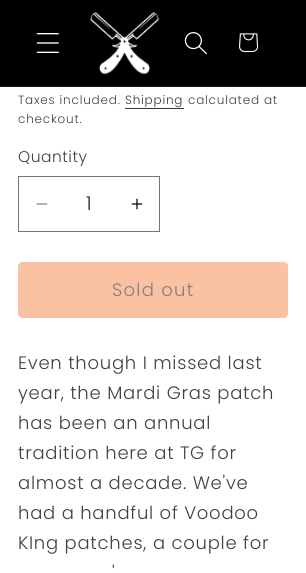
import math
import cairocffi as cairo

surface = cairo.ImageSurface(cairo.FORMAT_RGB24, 306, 573)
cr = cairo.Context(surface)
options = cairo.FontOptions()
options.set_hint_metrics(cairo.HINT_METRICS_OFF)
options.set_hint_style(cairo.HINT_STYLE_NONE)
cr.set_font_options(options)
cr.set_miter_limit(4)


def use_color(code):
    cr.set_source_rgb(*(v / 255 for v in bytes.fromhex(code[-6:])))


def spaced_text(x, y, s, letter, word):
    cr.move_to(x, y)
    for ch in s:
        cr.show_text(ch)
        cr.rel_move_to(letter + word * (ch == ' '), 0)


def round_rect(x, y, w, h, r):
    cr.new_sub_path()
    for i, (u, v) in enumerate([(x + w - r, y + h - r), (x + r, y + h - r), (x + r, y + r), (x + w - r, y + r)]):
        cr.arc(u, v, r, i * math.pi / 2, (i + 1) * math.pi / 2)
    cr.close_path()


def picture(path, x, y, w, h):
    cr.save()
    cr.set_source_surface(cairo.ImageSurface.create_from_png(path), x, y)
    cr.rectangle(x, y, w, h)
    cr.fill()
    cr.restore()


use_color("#ffffff")
cr.paint()
use_color("#000000")
cr.rectangle(0, 0, 306, 86)
cr.fill()
use_color("#141414")
cr.rectangle(0, 86, 306, 1)
cr.fill()
picture("img1.png", 36, 33, 23, 20)
picture("img2.png", 90, 12, 70, 63)
picture("img3.png", 184, 32, 23, 23)
picture("img4.png", 239, 33, 20, 19)
cr.select_font_face("Poppins Light")
cr.set_font_size(12)
use_color("#404040")
spaced_text(18, 104, "Taxes included.", 0.8, 0)
use_color("#363636")
spaced_text(125, 104, "Shipping", 0.8, 0)
cr.rectangle(125, 108, 59, 1)
cr.fill()
use_color("#404040")
spaced_text(188, 104, "calculated at", 0.8, 0)
spaced_text(18, 123, "checkout.", 0.8, 0)
cr.set_font_size(15.5)
spaced_text(18, 162, "Quantity", 0.5, 0)
picture("img5.png", 36, 203, 12, 2)
picture("img6.png", 131, 198, 12, 12)
cr.rectangle(18.5, 176.5, 141, 55)
use_color("#737373")
cr.set_line_width(1)
cr.stroke()
cr.set_font_size(19)
use_color("#262626")
cr.move_to(86, 210)
cr.show_text("1")
use_color("#fac1a2")
round_rect(18, 262, 270, 56, 5)
cr.fill()
round_rect(18.5, 262.5, 269, 55, 4.5)
cr.stroke()
cr.set_font_size(18)
use_color("#808080")
spaced_text(112, 296, "Sold out", 1.25, 0)
use_color("#404040")
spaced_text(18, 369, "Even though I missed last", 0.75, 0)
spaced_text(18, 399, "year, the Mardi Gras patch", 0.75, 0)
spaced_text(18, 429, "has been an annual", 0.75, 0)
spaced_text(18, 459, "tradition here at TG for", 0.75, 0)
spaced_text(18, 489, "almost a decade. We've", 0.75, 0)
spaced_text(18, 519, "had a handful of Voodoo", 0.75, 0)
spaced_text(18, 549, "KIng patches, a couple for", 0.75, 0)
spaced_text(112, 579, "'", 0.75, 0)
surface.write_to_png("result.png")
